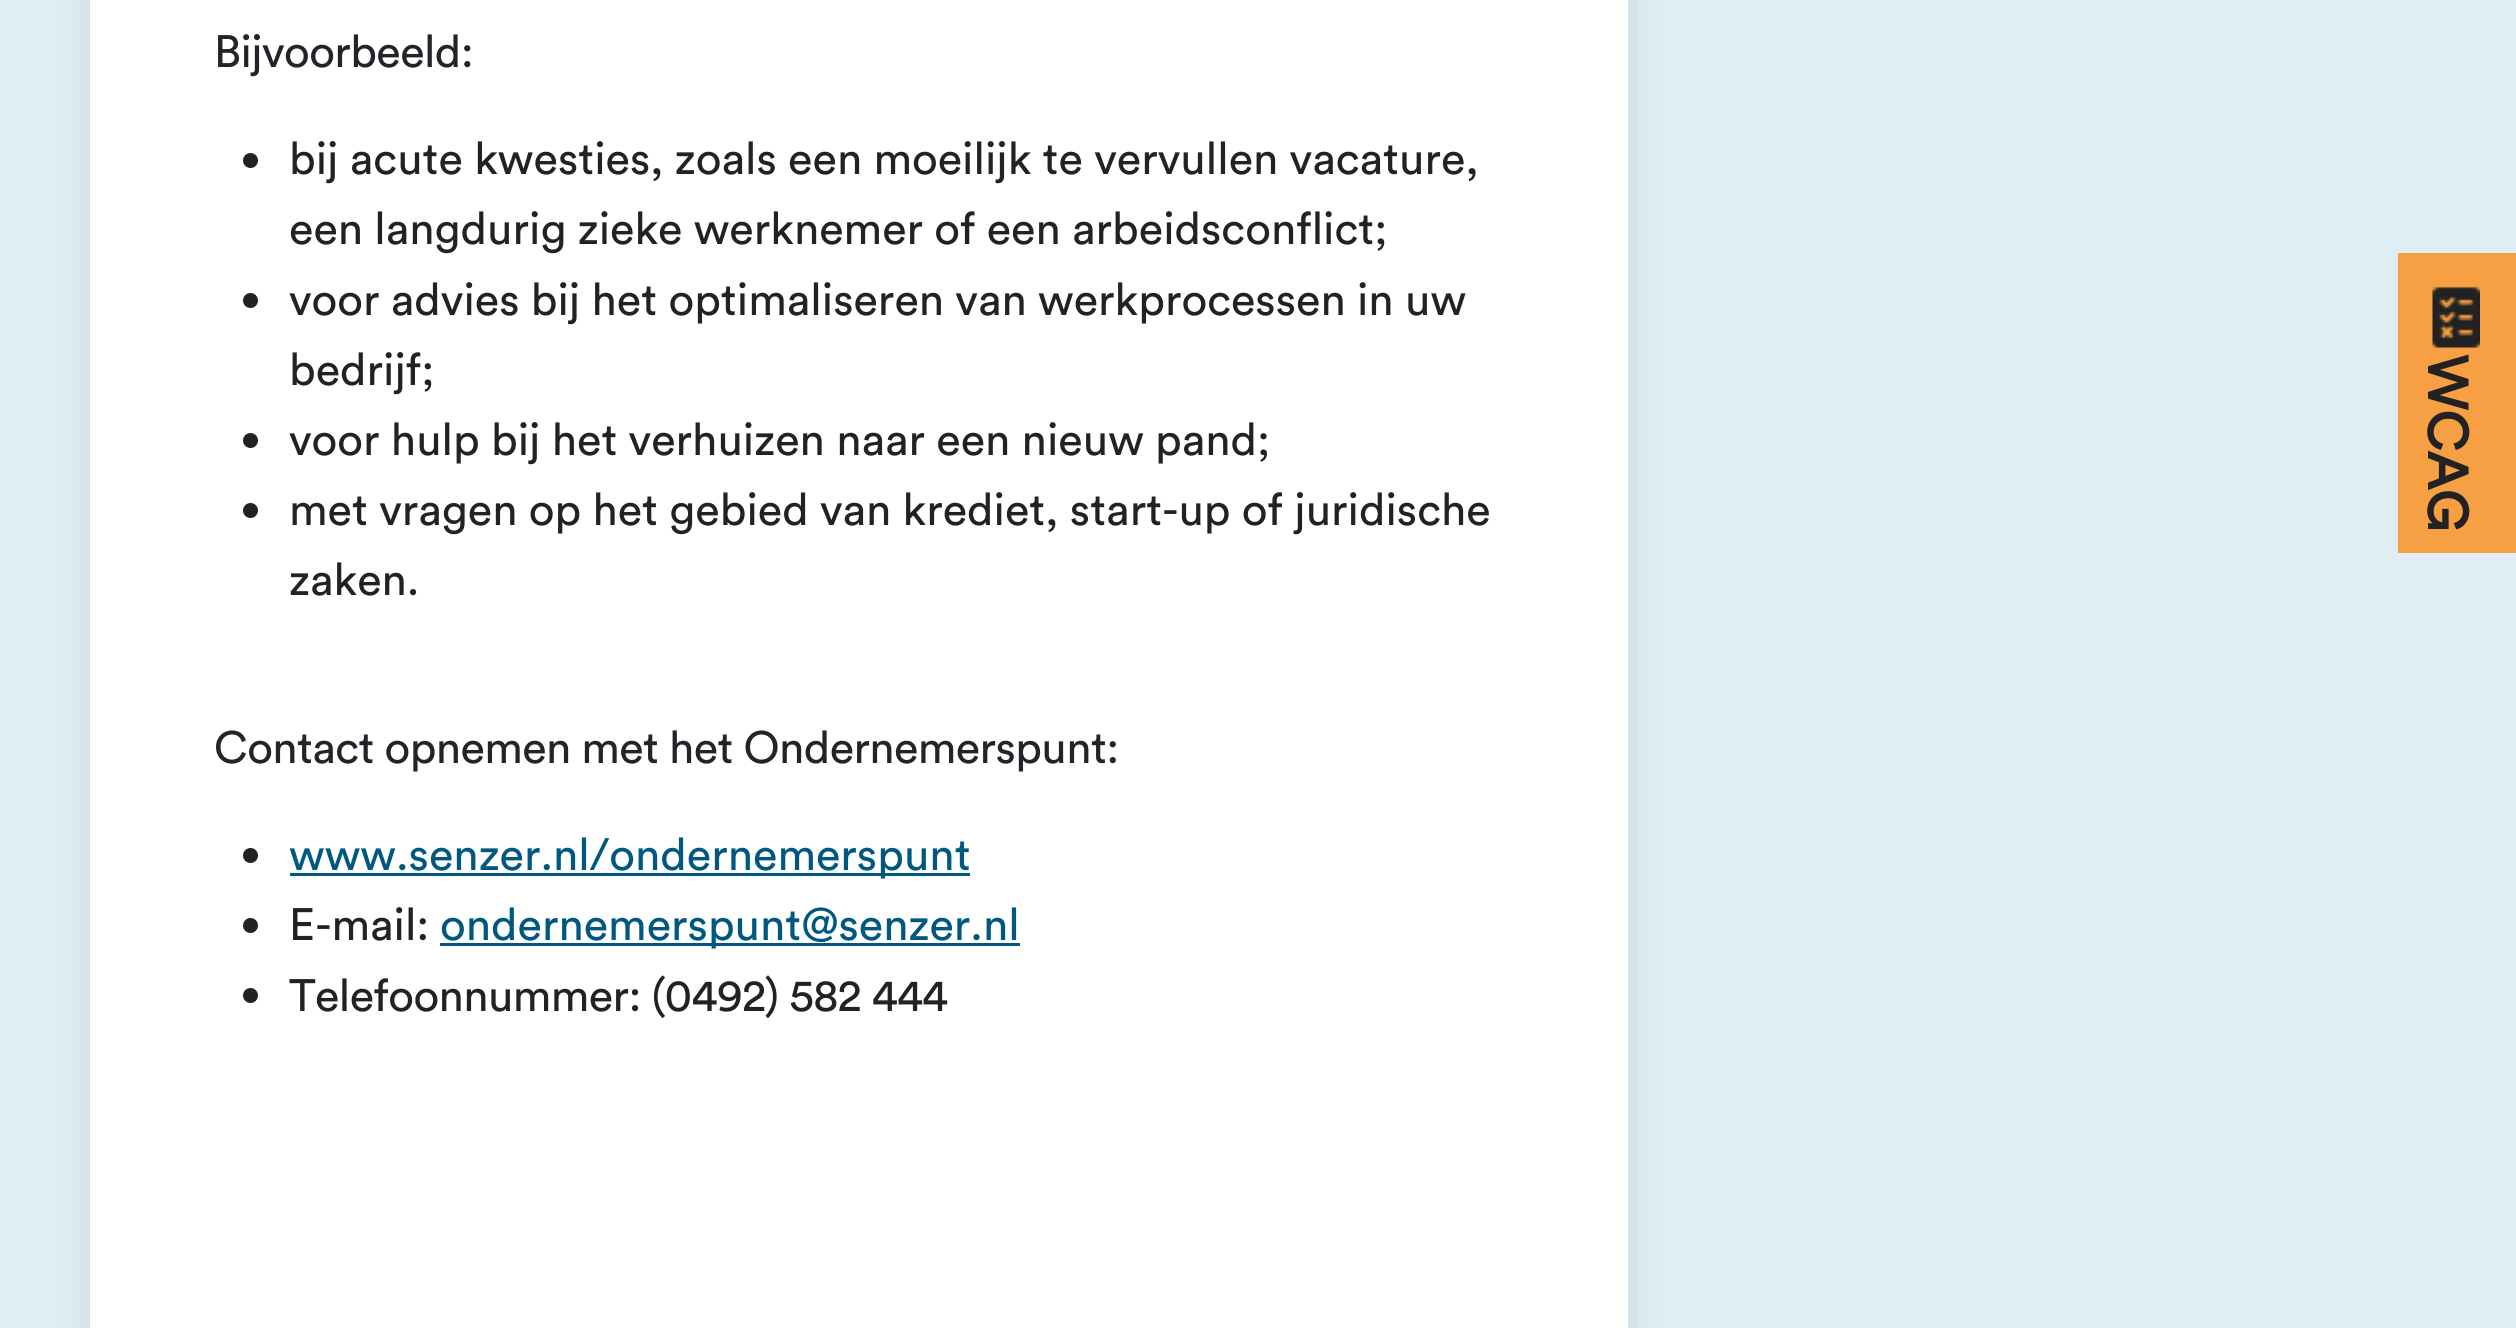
import math
import cairocffi as cairo

surface = cairo.ImageSurface(cairo.FORMAT_RGB24, 2516, 1328)
cr = cairo.Context(surface)
options = cairo.FontOptions()
options.set_hint_metrics(cairo.HINT_METRICS_OFF)
options.set_hint_style(cairo.HINT_STYLE_NONE)
cr.set_font_options(options)
cr.set_miter_limit(4)


def use_color(code):
    cr.set_source_rgb(*(v / 255 for v in bytes.fromhex(code[-6:])))


def spaced_text(x, y, s, letter, word):
    cr.move_to(x, y)
    for ch in s:
        cr.show_text(ch)
        cr.rel_move_to(letter + word * (ch == ' '), 0)


def round_rect(x, y, w, h, r):
    cr.new_sub_path()
    for i, (u, v) in enumerate([(x + w - r, y + h - r), (x + r, y + h - r), (x + r, y + r), (x + w - r, y + r)]):
        cr.arc(u, v, r, i * math.pi / 2, (i + 1) * math.pi / 2)
    cr.close_path()


def shadow(x, y, w, h, r, blur, alpha):
    cr.push_group_with_content(cairo.CONTENT_ALPHA)
    cr.set_operator(cairo.OPERATOR_SOURCE)
    for i in range(15, -16, -2):
        e = blur * i / 6
        if min(w, h) + 2 * e > 0:
            cr.set_source_rgba(0, 0, 0, alpha * math.erfc((i - 1) / 8.5) / 2)
            round_rect(x - e, y - e, w + 2 * e, h + 2 * e, max(0, min(r + e + blur * .6, min(w, h) / 2 + e)))
            cr.fill()
    cr.mask(cr.pop_group())


def picture(path, x, y, w, h):
    cr.save()
    cr.set_source_surface(cairo.ImageSurface.create_from_png(path), x, y)
    cr.rectangle(x, y, w, h)
    cr.fill()
    cr.restore()


use_color("#dfedf4")
cr.paint()
use_color("#000000")
shadow(110, -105, 1498, 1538, 30, 25, 0.25)
use_color("#ffffff")
cr.rectangle(90, 0, 1538, 1328)
cr.fill()
cr.select_font_face("Circular")
cr.set_font_size(45)
use_color("#212529")
spaced_text(214, 67, "Bijvoorbeeld:", -0.6, 0)
use_color("#222222")
cr.new_path()
cr.arc(250.5, 160.5, 7.5, 0, 2 * math.pi)
cr.fill()
cr.move_to(289, 174)
cr.show_text("bij acute kwesties, zoals een moeilijk te vervullen vacature,")
cr.move_to(289, 244)
cr.show_text("een langdurig zieke werknemer of een arbeidsconflict;")
cr.new_path()
cr.arc(250.5, 300.5, 7.5, 0, 2 * math.pi)
cr.fill()
cr.move_to(289, 315)
cr.show_text("voor advies bij het optimaliseren van werkprocessen in uw")
cr.move_to(289, 385)
cr.show_text("bedrijf;")
cr.new_path()
cr.arc(250.5, 440.5, 7.5, 0, 2 * math.pi)
cr.fill()
cr.move_to(289, 455)
cr.show_text("voor hulp bij het verhuizen naar een nieuw pand;")
cr.new_path()
cr.arc(250.5, 510.5, 7.5, 0, 2 * math.pi)
cr.fill()
cr.move_to(289, 525)
cr.show_text("met vragen op het gebied van krediet, start-up of juridische")
cr.move_to(289, 595)
cr.show_text("zaken.")
use_color("#212529")
spaced_text(214, 763, "Contact opnemen met het Ondernemerspunt:", -0.6, 0)
use_color("#222222")
cr.new_path()
cr.arc(250.5, 855.5, 7.5, 0, 2 * math.pi)
cr.fill()
use_color("#005881")
cr.rectangle(290, 873, 680, 3)
cr.fill()
cr.move_to(289, 870)
cr.show_text("www.senzer.nl/ondernemerspunt")
use_color("#222222")
cr.new_path()
cr.arc(250.5, 925.5, 7.5, 0, 2 * math.pi)
cr.fill()
cr.move_to(289, 940)
cr.show_text("E-mail:")
use_color("#005881")
cr.rectangle(440, 943, 580, 3)
cr.fill()
cr.move_to(440, 940)
cr.show_text("ondernemerspunt@senzer.nl")
use_color("#222222")
cr.new_path()
cr.arc(250.5, 995.5, 7.5, 0, 2 * math.pi)
cr.fill()
spaced_text(289, 1011, "Telefoonnummer: (0492) 582 444", -0.6, 0)
use_color("#f7a043")
cr.rectangle(2398, 253, 118, 300)
cr.fill()
picture("img1.png", 2432, 286, 48, 62)
cr.select_font_face("Circular", cairo.FONT_SLANT_NORMAL, cairo.FONT_WEIGHT_BOLD)
cr.set_font_size(55)
use_color("#222222")
cr.save()
cr.translate(2428, 354)
cr.rotate(90 * math.pi / 180)
cr.move_to(0, 0)
cr.show_text("WCAG")
cr.restore()
surface.write_to_png("result.png")
